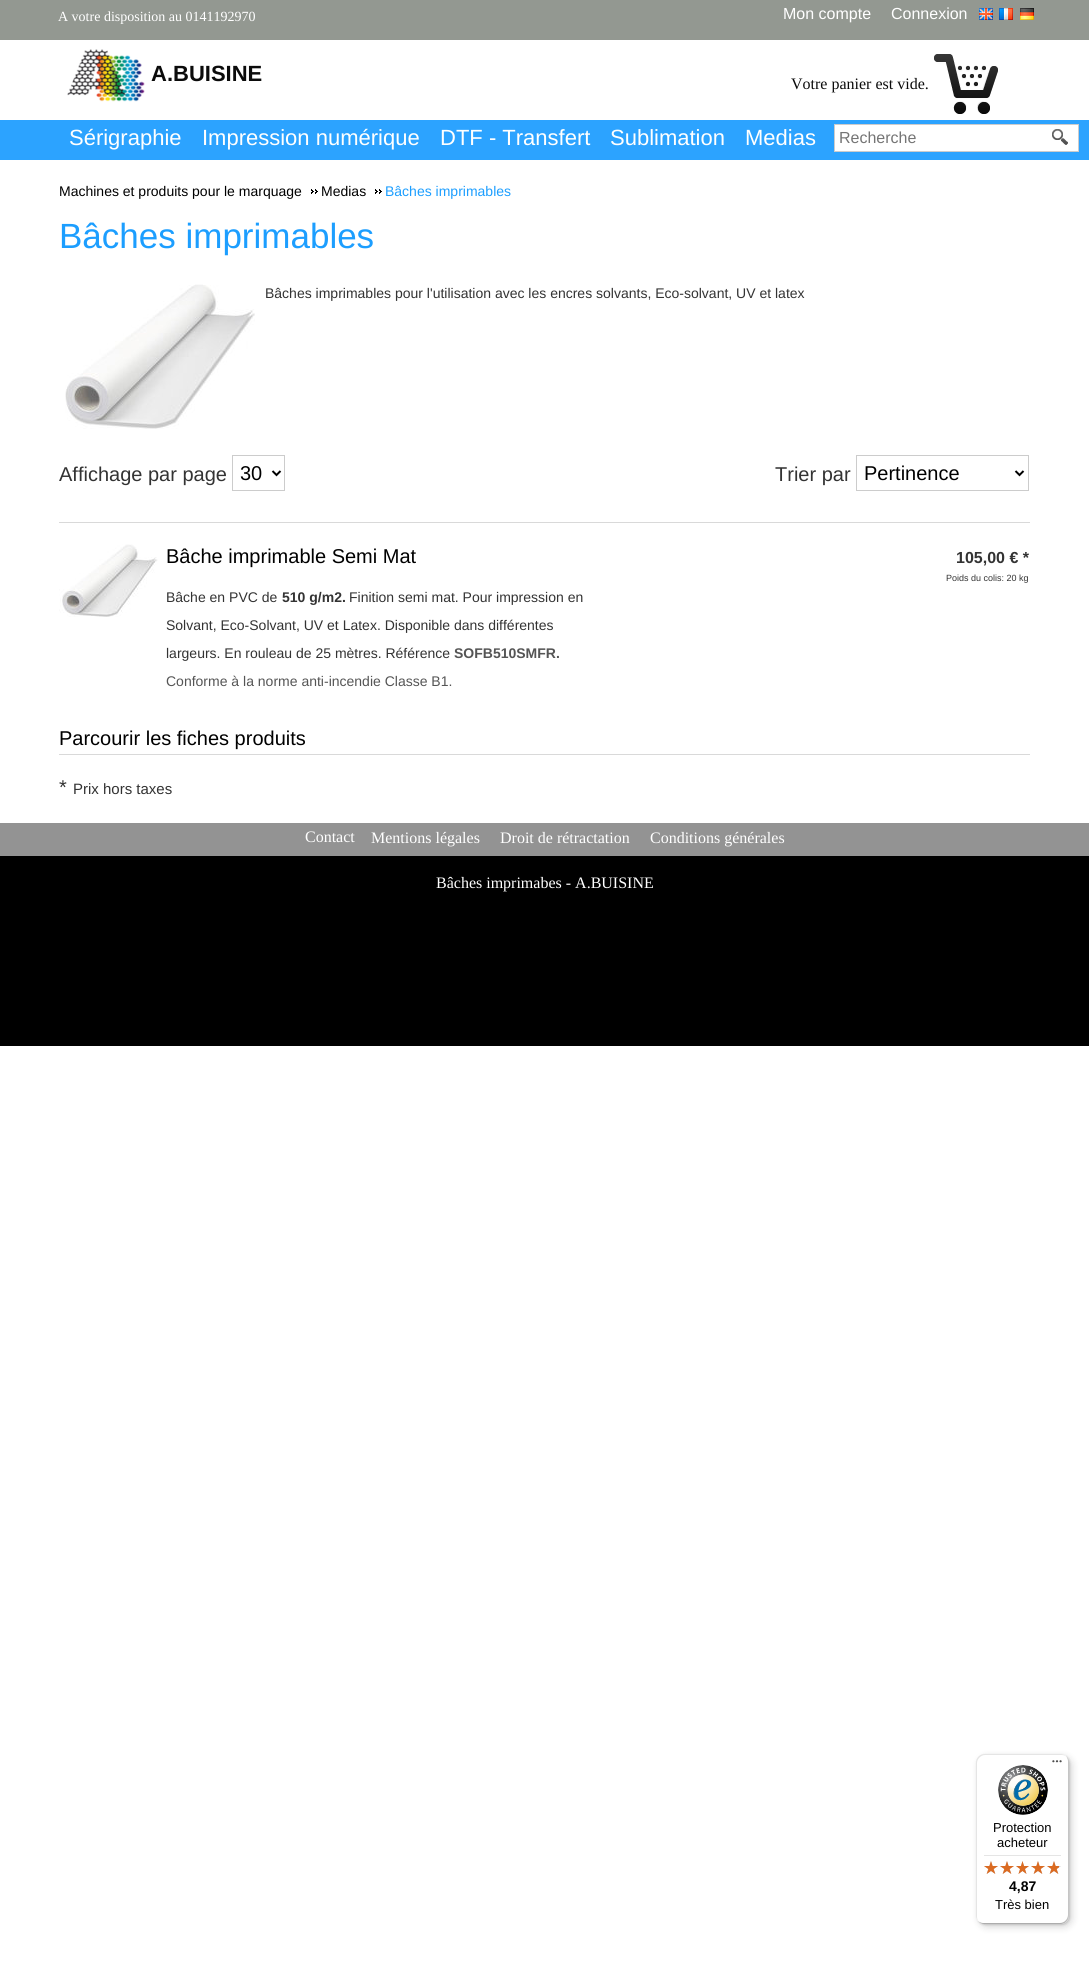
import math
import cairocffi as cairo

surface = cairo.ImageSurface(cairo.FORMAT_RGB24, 1089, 1978)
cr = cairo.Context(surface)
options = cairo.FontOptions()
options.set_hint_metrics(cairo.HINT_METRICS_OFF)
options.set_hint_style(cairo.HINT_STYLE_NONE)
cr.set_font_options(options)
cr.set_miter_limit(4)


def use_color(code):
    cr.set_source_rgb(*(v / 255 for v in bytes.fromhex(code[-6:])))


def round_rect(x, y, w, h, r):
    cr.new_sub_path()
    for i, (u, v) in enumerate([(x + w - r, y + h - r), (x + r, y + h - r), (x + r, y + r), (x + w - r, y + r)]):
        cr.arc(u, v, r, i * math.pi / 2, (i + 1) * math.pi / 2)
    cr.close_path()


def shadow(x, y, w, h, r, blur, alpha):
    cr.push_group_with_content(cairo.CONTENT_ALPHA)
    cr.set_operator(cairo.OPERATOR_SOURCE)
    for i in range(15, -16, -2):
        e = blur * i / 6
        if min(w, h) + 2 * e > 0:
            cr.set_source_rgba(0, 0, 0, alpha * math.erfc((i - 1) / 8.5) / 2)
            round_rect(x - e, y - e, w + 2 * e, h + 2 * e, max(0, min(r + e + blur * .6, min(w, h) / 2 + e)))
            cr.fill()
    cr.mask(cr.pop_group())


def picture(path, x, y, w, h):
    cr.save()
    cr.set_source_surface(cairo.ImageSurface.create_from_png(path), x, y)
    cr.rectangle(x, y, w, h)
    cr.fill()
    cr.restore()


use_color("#ffffff")
cr.paint()
use_color("#939891")
cr.rectangle(0, 0, 1089, 40)
cr.fill()
cr.select_font_face("Liberation Serif")
cr.set_font_size(14)
use_color("#ffffff")
cr.move_to(58, 21)
cr.show_text("A votre disposition au 0141192970")
cr.select_font_face("Liberation Sans")
cr.set_font_size(16)
cr.move_to(783, 19)
cr.show_text("Mon compte")
cr.move_to(891, 19)
cr.show_text("Connexion")
picture("img1.png", 979, 8, 14, 12)
picture("img2.png", 999, 8, 14, 12)
picture("img3.png", 1020, 8, 14, 12)
picture("img4.png", 67, 49, 78, 53)
cr.select_font_face("Liberation Sans", cairo.FONT_SLANT_NORMAL, cairo.FONT_WEIGHT_BOLD)
cr.set_font_size(22)
use_color("#0b0b0b")
cr.move_to(151, 81)
cr.show_text("A.BUISINE")
cr.select_font_face("Liberation Serif")
cr.set_font_size(16)
cr.move_to(791, 89)
cr.show_text("Votre panier est vide.")
picture("img5.png", 934, 54, 64, 60)
use_color("#2ca3ff")
cr.rectangle(0, 120, 1089, 40)
cr.fill()
cr.select_font_face("Liberation Sans")
cr.set_font_size(22)
use_color("#ffffff")
cr.move_to(69, 145)
cr.show_text("Sérigraphie")
cr.move_to(202, 145)
cr.show_text("Impression numérique")
cr.move_to(440, 145)
cr.show_text("DTF - Transfert")
cr.move_to(610, 145)
cr.show_text("Sublimation")
cr.move_to(745, 145)
cr.show_text("Medias")
cr.rectangle(834.5, 124.5, 244, 27)
cr.fill_preserve()
use_color("#cccccc")
cr.set_line_width(1)
cr.stroke()
cr.set_font_size(16)
use_color("#757575")
cr.move_to(839, 143)
cr.show_text("Recherche")
picture("img6.png", 1052, 129, 16, 16)
cr.set_font_size(14)
use_color("#000000")
cr.move_to(59, 196)
cr.show_text("Machines et produits pour le marquage")
picture("img7.png", 311, 189, 7, 5)
cr.move_to(321, 196)
cr.show_text("Medias")
picture("img7.png", 375, 189, 7, 5)
use_color("#1c9eff")
cr.move_to(385, 196)
cr.show_text("Bâches imprimables")
cr.set_font_size(35)
cr.move_to(59, 248)
cr.show_text("Bâches imprimables")
picture("img8.png", 65, 284, 190, 145)
cr.set_font_size(14)
use_color("#333333")
cr.move_to(265, 298)
cr.show_text("Bâches imprimables pour l'utilisation avec les encres solvants, Eco-solvant, UV et latex")
cr.set_font_size(20)
cr.move_to(59, 481)
cr.show_text("Affichage par page")
cr.rectangle(232.5, 455.5, 52, 35)
use_color("#cccccc")
cr.stroke()
cr.new_path()
cr.move_to(272.5, 471)
cr.line_to(276.5, 475)
cr.line_to(280.5, 471)
use_color("#000000")
cr.set_line_width(2)
cr.stroke()
cr.move_to(240, 480)
cr.show_text("30")
use_color("#333333")
cr.move_to(775, 481)
cr.show_text("Trier par")
cr.rectangle(856.5, 455.5, 172, 35)
use_color("#cccccc")
cr.set_line_width(1)
cr.stroke()
cr.new_path()
cr.move_to(1015.5, 471)
cr.line_to(1019.5, 475)
cr.line_to(1023.5, 471)
use_color("#000000")
cr.set_line_width(2)
cr.stroke()
cr.move_to(864, 480)
cr.show_text("Pertinence")
use_color("#d9d9d9")
cr.rectangle(59, 522, 971, 1)
cr.fill()
picture("img9.png", 59, 544, 99, 73)
use_color("#000000")
cr.move_to(166, 563)
cr.show_text("Bâche imprimable Semi Mat")
cr.set_font_size(14)
use_color("#333333")
cr.move_to(166, 602)
cr.show_text("Bâche en PVC de")
cr.select_font_face("Liberation Sans", cairo.FONT_SLANT_NORMAL, cairo.FONT_WEIGHT_BOLD)
cr.move_to(282, 602)
cr.show_text("510 g/m2.")
cr.select_font_face("Liberation Sans")
cr.move_to(349, 602)
cr.show_text("Finition semi mat. Pour impression en")
cr.move_to(166, 630)
cr.show_text("Solvant, Eco-Solvant, UV et Latex. Disponible dans différentes")
cr.move_to(166, 658)
cr.show_text("largeurs. En rouleau de 25 mètres. Référence")
cr.select_font_face("Liberation Sans", cairo.FONT_SLANT_NORMAL, cairo.FONT_WEIGHT_BOLD)
use_color("#555555")
cr.move_to(454, 658)
cr.show_text("SOFB510SMFR.")
cr.select_font_face("Liberation Sans")
cr.move_to(166, 686)
cr.show_text("Conforme à la norme anti-incendie Classe B1.")
cr.select_font_face("Liberation Sans", cairo.FONT_SLANT_NORMAL, cairo.FONT_WEIGHT_BOLD)
cr.set_font_size(16)
use_color("#333333")
cr.move_to(956, 563)
cr.show_text("105,00 € *")
cr.select_font_face("Liberation Sans")
cr.set_font_size(9)
cr.move_to(946, 581)
cr.show_text("Poids du colis: 20 kg")
cr.set_font_size(20)
use_color("#000000")
cr.move_to(59, 745)
cr.show_text("Parcourir les fiches produits")
use_color("#d9d9d9")
cr.rectangle(59, 754, 971, 1)
cr.fill()
use_color("#333333")
cr.move_to(59, 794)
cr.show_text("*")
cr.set_font_size(15)
cr.move_to(73, 794)
cr.show_text("Prix hors taxes")
use_color("#939393")
cr.rectangle(0, 823, 1089, 33)
cr.fill()
cr.select_font_face("Liberation Serif")
cr.set_font_size(16)
use_color("#ffffff")
cr.move_to(305, 842)
cr.show_text("Contact")
cr.move_to(371, 843)
cr.show_text("Mentions légales")
cr.move_to(500, 843)
cr.show_text("Droit de rétractation")
cr.move_to(650, 843)
cr.show_text("Conditions générales")
use_color("#000000")
cr.rectangle(0, 856, 1089, 190)
cr.fill()
use_color("#ffffff")
cr.move_to(436, 888)
cr.show_text("Bâches imprimabes - A.BUISINE")
use_color("#000000")
shadow(979, 1757, 93, 170, 8, 4, 0.15)
shadow(977, 1755, 93, 170, 8, 1, 0.15)
use_color("#ffffff")
round_rect(976, 1754, 93, 170, 8)
cr.fill()
use_color("#e5e5e5")
cr.new_path()
cr.move_to(985, 1755)
cr.line_to(1062, 1755)
cr.curve_to(1064, 1755, 1066, 1756, 1068, 1758)
cr.curve_to(1066, 1756, 1064, 1754, 1061, 1754)
cr.line_to(984, 1754)
cr.curve_to(980, 1754, 976, 1758, 976, 1762)
cr.line_to(976, 1916)
cr.curve_to(976, 1919, 978, 1921, 980, 1923)
cr.curve_to(978, 1921, 977, 1919, 977, 1917)
cr.line_to(977, 1763)
cr.curve_to(977, 1759, 981, 1755, 985, 1755)
cr.close_path()
cr.fill()
use_color("#cccccc")
cr.new_path()
cr.move_to(977, 1920)
cr.curve_to(979, 1922, 981, 1924, 984, 1924)
cr.line_to(1061, 1924)
cr.curve_to(1065, 1924, 1069, 1920, 1069, 1916)
cr.line_to(1069, 1762)
cr.curve_to(1069, 1759, 1067, 1757, 1065, 1755)
cr.curve_to(1067, 1757, 1068, 1759, 1068, 1761)
cr.line_to(1068, 1915)
cr.curve_to(1068, 1919, 1064, 1923, 1060, 1923)
cr.line_to(983, 1923)
cr.curve_to(981, 1923, 979, 1922, 977, 1920)
cr.close_path()
cr.fill()
cr.set_source_rgba(0.196, 0.196, 0.196, 0.2)
cr.new_path()
cr.move_to(978, 1921)
cr.curve_to(979, 1923, 982, 1924, 984, 1924)
cr.line_to(1061, 1924)
cr.curve_to(1065, 1924, 1069, 1920, 1069, 1916)
cr.line_to(1069, 1762)
cr.curve_to(1069, 1760, 1068, 1757, 1066, 1756)
cr.curve_to(1067, 1757, 1068, 1759, 1068, 1761)
cr.line_to(1068, 1915)
cr.curve_to(1068, 1920, 1065, 1923, 1060, 1923)
cr.line_to(983, 1923)
cr.curve_to(981, 1923, 979, 1922, 978, 1921)
cr.close_path()
cr.fill()
cr.set_source_rgba(1, 1, 1, 0.3)
cr.new_path()
cr.move_to(1060, 1924)
cr.line_to(1061, 1924)
cr.curve_to(1065, 1924, 1069, 1920, 1069, 1916)
cr.line_to(1069, 1762)
cr.curve_to(1069, 1758, 1065, 1754, 1061, 1754)
cr.line_to(1060, 1754)
cr.curve_to(1065, 1754, 1068, 1757, 1068, 1762)
cr.line_to(1068, 1916)
cr.curve_to(1068, 1920, 1065, 1924, 1060, 1924)
cr.close_path()
cr.fill()
picture("img10.png", 1052, 1760, 10, 3)
picture("img11.png", 998, 1765, 50, 50)
cr.select_font_face("Liberation Sans")
cr.set_font_size(13)
use_color("#000000")
cr.move_to(993, 1832)
cr.show_text("Protection")
cr.move_to(997, 1847)
cr.show_text("acheteur")
use_color("#e5e5e5")
cr.rectangle(984, 1855, 77, 1)
cr.fill()
picture("img12.png", 984, 1861, 14, 13)
picture("img12.png", 1000, 1861, 14, 13)
picture("img13.png", 1016, 1861, 13, 13)
picture("img12.png", 1031, 1861, 14, 13)
picture("img12.png", 1047, 1861, 14, 13)
picture("img14.png", 984, 1861, 14, 13)
picture("img14.png", 1000, 1861, 14, 13)
picture("img15.png", 1016, 1861, 13, 13)
picture("img14.png", 1031, 1861, 14, 13)
picture("img16.png", 1047, 1861, 12, 13)
cr.select_font_face("Liberation Sans", cairo.FONT_SLANT_NORMAL, cairo.FONT_WEIGHT_BOLD)
cr.set_font_size(14)
use_color("#000000")
cr.move_to(1009, 1891)
cr.show_text("4,87")
cr.select_font_face("Liberation Sans")
cr.set_font_size(13)
cr.move_to(995, 1909)
cr.show_text("Très bien")
surface.write_to_png("result.png")
